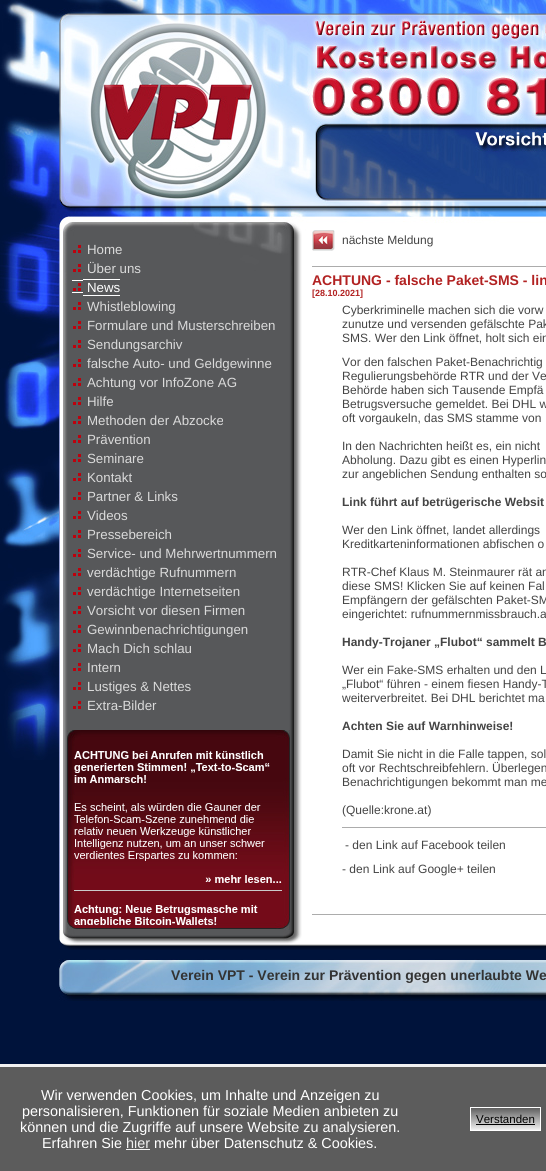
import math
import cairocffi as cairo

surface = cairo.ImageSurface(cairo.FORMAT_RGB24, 546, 1171)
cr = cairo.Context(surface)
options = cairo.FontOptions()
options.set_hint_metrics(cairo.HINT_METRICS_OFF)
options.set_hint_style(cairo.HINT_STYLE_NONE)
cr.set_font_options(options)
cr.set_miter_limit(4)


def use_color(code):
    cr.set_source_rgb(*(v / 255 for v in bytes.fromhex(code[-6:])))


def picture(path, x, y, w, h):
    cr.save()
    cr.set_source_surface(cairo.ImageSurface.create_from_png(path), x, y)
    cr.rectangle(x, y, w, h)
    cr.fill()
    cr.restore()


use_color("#00133b")
cr.paint()
picture("img1.png", 0, 0, 59, 760)
picture("img2.png", 59, 0, 487, 215)
picture("img3.png", 59, 285, 487, 645)
picture("img4.png", 59, 215, 487, 70)
picture("img5.png", 73, 245, 8, 8)
cr.select_font_face("Liberation Sans")
cr.set_font_size(13.3)
use_color("#dadada")
cr.move_to(87, 254)
cr.show_text("Home")
picture("img5.png", 73, 264, 8, 8)
cr.move_to(87, 273)
cr.show_text("Über uns")
picture("img5.png", 73, 283, 8, 8)
use_color("#ffffff")
cr.move_to(87, 292)
cr.show_text("News")
cr.rectangle(72, 280, 11, 1)
cr.fill()
cr.rectangle(72, 292, 11, 1)
cr.fill()
cr.rectangle(83, 279, 37, 1)
cr.fill()
cr.rectangle(83, 295, 37, 1)
cr.fill()
picture("img5.png", 73, 302, 8, 8)
use_color("#dadada")
cr.move_to(87, 311)
cr.show_text("Whistleblowing")
picture("img5.png", 73, 321, 8, 8)
cr.move_to(87, 330)
cr.show_text("Formulare und Musterschreiben")
picture("img5.png", 73, 340, 8, 8)
cr.move_to(87, 349)
cr.show_text("Sendungsarchiv")
picture("img5.png", 73, 359, 8, 8)
cr.move_to(87, 368)
cr.show_text("falsche Auto- und Geldgewinne")
picture("img5.png", 73, 378, 8, 8)
cr.move_to(87, 387)
cr.show_text("Achtung vor InfoZone AG")
picture("img5.png", 73, 397, 8, 8)
cr.move_to(87, 406)
cr.show_text("Hilfe")
picture("img5.png", 73, 416, 8, 8)
cr.move_to(87, 425)
cr.show_text("Methoden der Abzocke")
picture("img5.png", 73, 435, 8, 8)
cr.move_to(87, 444)
cr.show_text("Prävention")
picture("img5.png", 73, 454, 8, 8)
cr.move_to(87, 463)
cr.show_text("Seminare")
picture("img5.png", 73, 473, 8, 8)
cr.move_to(87, 482)
cr.show_text("Kontakt")
picture("img5.png", 73, 492, 8, 8)
cr.move_to(87, 501)
cr.show_text("Partner & Links")
picture("img5.png", 73, 511, 8, 8)
cr.move_to(87, 520)
cr.show_text("Videos")
picture("img5.png", 73, 530, 8, 8)
cr.move_to(87, 539)
cr.show_text("Pressebereich")
picture("img5.png", 73, 549, 8, 8)
cr.move_to(87, 558)
cr.show_text("Service- und Mehrwertnummern")
picture("img5.png", 73, 568, 8, 8)
cr.move_to(87, 577)
cr.show_text("verdächtige Rufnummern")
picture("img5.png", 73, 587, 8, 8)
cr.move_to(87, 596)
cr.show_text("verdächtige Internetseiten")
picture("img5.png", 73, 606, 8, 8)
cr.move_to(87, 615)
cr.show_text("Vorsicht vor diesen Firmen")
picture("img5.png", 73, 625, 8, 8)
cr.move_to(87, 634)
cr.show_text("Gewinnbenachrichtigungen")
picture("img5.png", 73, 644, 8, 8)
cr.move_to(87, 653)
cr.show_text("Mach Dich schlau")
picture("img5.png", 73, 663, 8, 8)
cr.move_to(87, 672)
cr.show_text("Intern")
picture("img5.png", 73, 682, 8, 8)
cr.move_to(87, 691)
cr.show_text("Lustiges & Nettes")
picture("img5.png", 73, 701, 8, 8)
cr.move_to(87, 710)
cr.show_text("Extra-Bilder")
picture("img6.png", 67, 730, 223, 200)
picture("img7.png", 312, 230, 23, 21)
cr.set_font_size(12)
use_color("#444444")
cr.move_to(342, 244)
cr.show_text("nächste Meldung")
use_color("#acacac")
cr.rectangle(312, 266, 234, 1)
cr.fill()
cr.select_font_face("Liberation Sans", cairo.FONT_SLANT_NORMAL, cairo.FONT_WEIGHT_BOLD)
cr.set_font_size(14)
use_color("#b22222")
cr.move_to(312, 285)
cr.show_text("ACHTUNG - falsche Paket-SMS - lin")
cr.set_font_size(9)
cr.move_to(312, 296)
cr.show_text("[28.10.2021]")
cr.select_font_face("Liberation Sans")
cr.set_font_size(12)
use_color("#444444")
cr.move_to(342, 314)
cr.show_text("Cyberkriminelle machen sich die vorw")
cr.move_to(342, 328)
cr.show_text("zunutze und versenden gefälschte Pak")
cr.move_to(342, 342)
cr.show_text("SMS. Wer den Link öffnet, holt sich ein")
cr.move_to(342, 366)
cr.show_text("Vor den falschen Paket-Benachrichtig")
cr.move_to(342, 380)
cr.show_text("Regulierungsbehörde RTR und der Ve")
cr.move_to(342, 394)
cr.show_text("Behörde haben sich Tausende Empfä")
cr.move_to(342, 408)
cr.show_text("Betrugsversuche gemeldet. Bei DHL w")
cr.move_to(342, 422)
cr.show_text("oft vorgaukeln, das SMS stamme von")
cr.move_to(342, 450)
cr.show_text("In den Nachrichten heißt es, ein nicht")
cr.move_to(342, 464)
cr.show_text("Abholung. Dazu gibt es einen Hyperlin")
cr.move_to(342, 478)
cr.show_text("zur angeblichen Sendung enthalten so")
cr.select_font_face("Liberation Sans", cairo.FONT_SLANT_NORMAL, cairo.FONT_WEIGHT_BOLD)
cr.move_to(342, 506)
cr.show_text("Link führt auf betrügerische Websit")
cr.select_font_face("Liberation Sans")
cr.move_to(342, 534)
cr.show_text("Wer den Link öffnet, landet allerdings")
cr.move_to(342, 548)
cr.show_text("Kreditkarteninformationen abfischen o")
cr.move_to(342, 576)
cr.show_text("RTR-Chef Klaus M. Steinmaurer rät an")
cr.move_to(342, 590)
cr.show_text("diese SMS! Klicken Sie auf keinen Fal")
cr.move_to(342, 604)
cr.show_text("Empfängern der gefälschten Paket-SM")
cr.move_to(342, 618)
cr.show_text("eingerichtet: rufnummernmissbrauch.a")
cr.select_font_face("Liberation Sans", cairo.FONT_SLANT_NORMAL, cairo.FONT_WEIGHT_BOLD)
cr.move_to(342, 646)
cr.show_text("Handy-Trojaner „Flubot“ sammelt B")
cr.select_font_face("Liberation Sans")
cr.move_to(342, 674)
cr.show_text("Wer ein Fake-SMS erhalten und den L")
cr.move_to(342, 688)
cr.show_text("„Flubot“ führen - einem fiesen Handy-T")
cr.move_to(342, 702)
cr.show_text("weiterverbreitet. Bei DHL berichtet ma")
cr.select_font_face("Liberation Sans", cairo.FONT_SLANT_NORMAL, cairo.FONT_WEIGHT_BOLD)
cr.move_to(342, 730)
cr.show_text("Achten Sie auf Warnhinweise!")
cr.select_font_face("Liberation Sans")
cr.move_to(342, 758)
cr.show_text("Damit Sie nicht in die Falle tappen, sol")
cr.move_to(342, 772)
cr.show_text("oft vor Rechtschreibfehlern. Überlegen")
cr.move_to(342, 786)
cr.show_text("Benachrichtigungen bekommt man me")
cr.move_to(342, 814)
cr.show_text("(Quelle:krone.at)")
use_color("#acacac")
cr.rectangle(342, 827, 204, 1)
cr.fill()
use_color("#444444")
cr.move_to(345, 849)
cr.show_text("- den Link auf Facebook teilen")
cr.move_to(342, 873)
cr.show_text("- den Link auf Google+ teilen")
use_color("#acacac")
cr.rectangle(312, 914, 234, 1)
cr.fill()
picture("img8.png", 59, 930, 487, 20)
picture("img9.png", 59, 959, 487, 42)
cr.select_font_face("Liberation Sans", cairo.FONT_SLANT_NORMAL, cairo.FONT_WEIGHT_BOLD)
cr.set_font_size(14)
use_color("#333333")
cr.move_to(171, 980)
cr.show_text("Verein VPT - Verein zur Prävention gegen unerlaubte We")
use_color("#5c5c5c")
cr.rectangle(0, 1067, 546, 104)
cr.fill()
use_color("#f2f2f2")
cr.rectangle(0, 1064, 546, 3)
cr.fill()
cr.select_font_face("Liberation Sans")
cr.set_font_size(14.4)
use_color("#ffffff")
cr.move_to(41, 1100)
cr.show_text("Wir verwenden Cookies, um Inhalte und Anzeigen zu")
cr.move_to(22, 1116)
cr.show_text("personalisieren, Funktionen für soziale Medien anbieten zu")
cr.move_to(20, 1132)
cr.show_text("können und die Zugriffe auf unsere Website zu analysieren.")
cr.move_to(42, 1148)
cr.show_text("Erfahren Sie")
use_color("#f2f2f2")
cr.move_to(126, 1148)
cr.show_text("hier")
cr.rectangle(126, 1149, 24, 1)
cr.fill()
use_color("#ffffff")
cr.move_to(154, 1148)
cr.show_text("mehr über Datenschutz & Cookies.")
gradient = cairo.LinearGradient(506, 1108, 506, 1130)
gradient.add_color_stop_rgba(0, 0.373, 0.373, 0.373, 1)
gradient.add_color_stop_rgba(1, 0.949, 0.949, 0.949, 1)
cr.set_source(gradient)
cr.rectangle(471, 1108, 69, 22)
cr.fill()
cr.rectangle(470.5, 1107.5, 70, 23)
use_color("#ffffff")
cr.set_line_width(1)
cr.stroke()
cr.set_font_size(11.5)
use_color("#000000")
cr.move_to(476, 1123)
cr.show_text("Verstanden")
cr.rectangle(476, 1124, 59, 1)
cr.fill()
surface.write_to_png("result.png")
